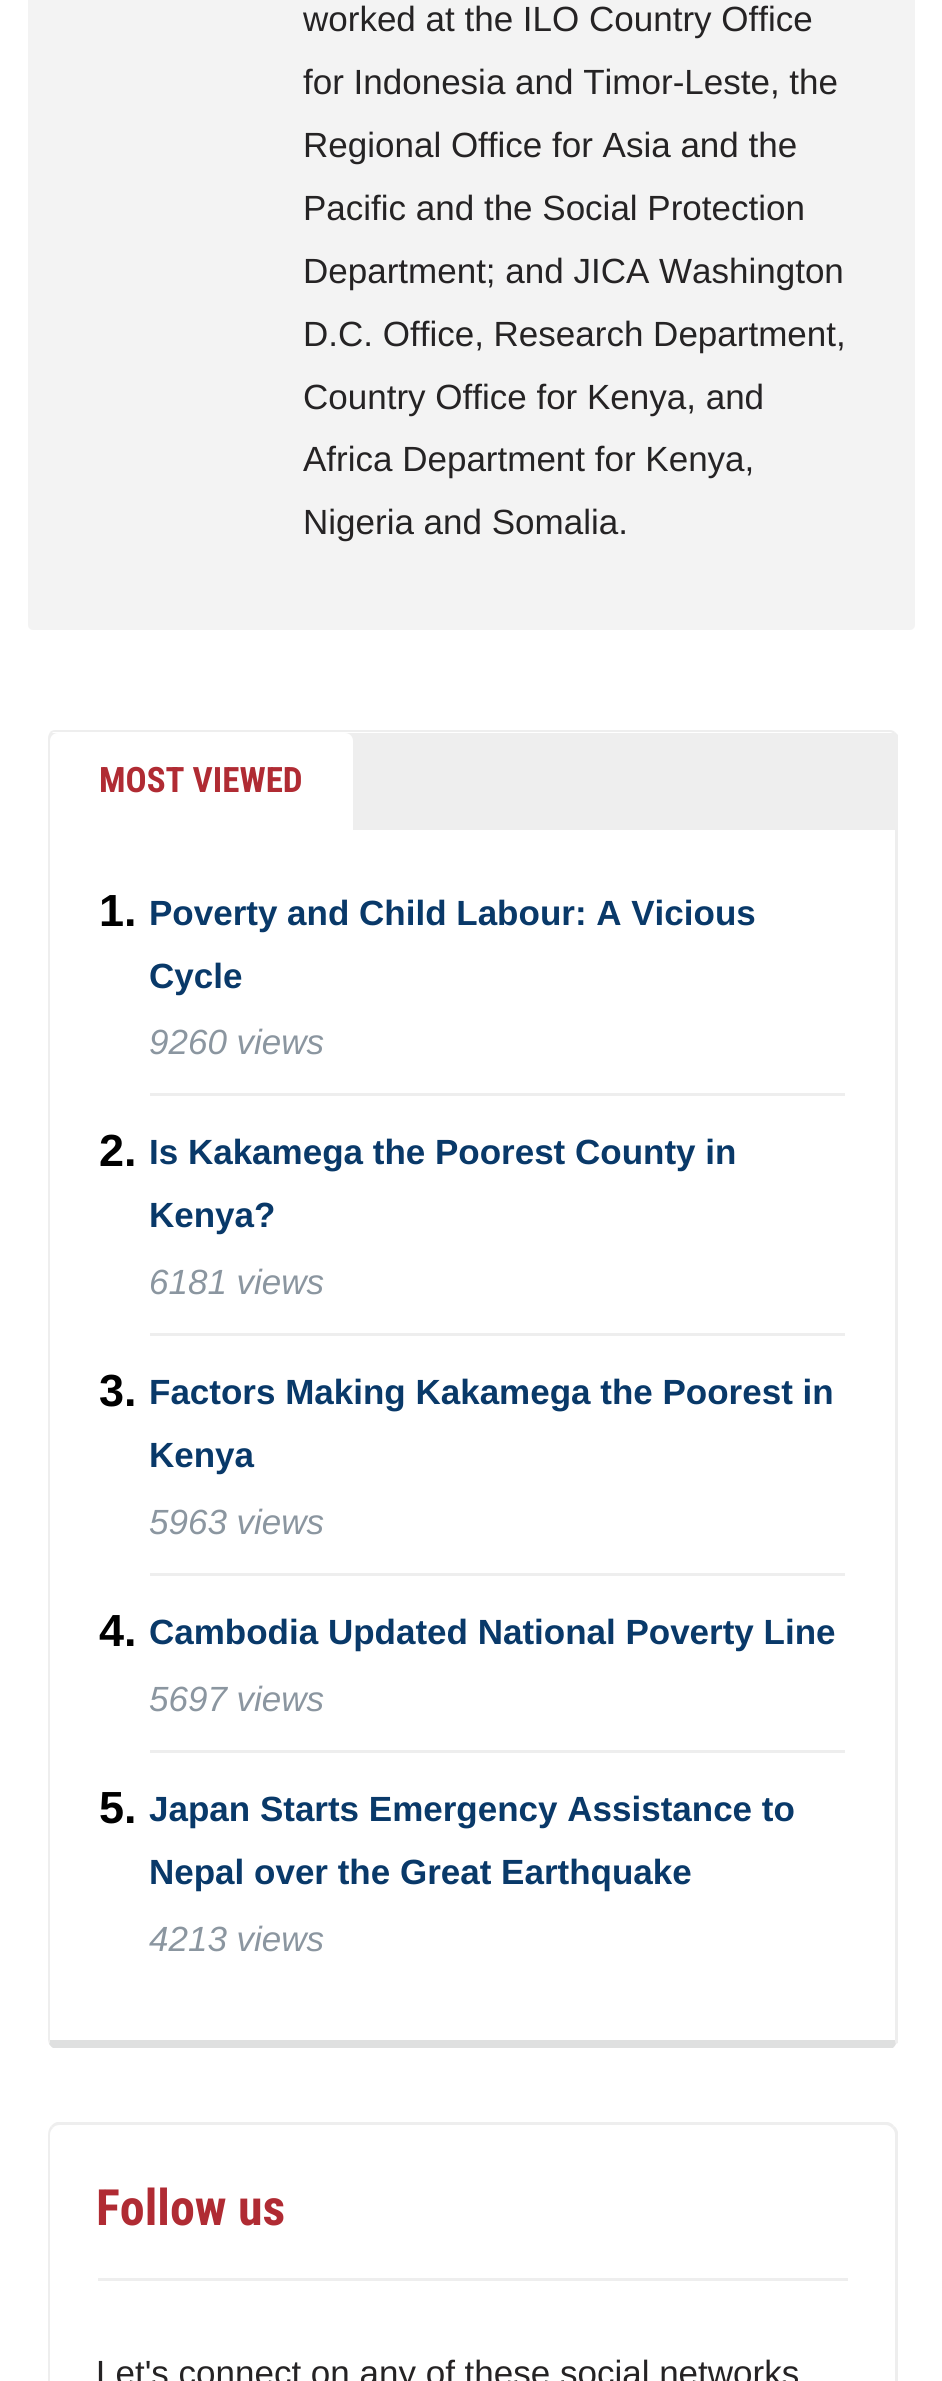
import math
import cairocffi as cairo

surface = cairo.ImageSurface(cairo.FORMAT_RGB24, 942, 2381)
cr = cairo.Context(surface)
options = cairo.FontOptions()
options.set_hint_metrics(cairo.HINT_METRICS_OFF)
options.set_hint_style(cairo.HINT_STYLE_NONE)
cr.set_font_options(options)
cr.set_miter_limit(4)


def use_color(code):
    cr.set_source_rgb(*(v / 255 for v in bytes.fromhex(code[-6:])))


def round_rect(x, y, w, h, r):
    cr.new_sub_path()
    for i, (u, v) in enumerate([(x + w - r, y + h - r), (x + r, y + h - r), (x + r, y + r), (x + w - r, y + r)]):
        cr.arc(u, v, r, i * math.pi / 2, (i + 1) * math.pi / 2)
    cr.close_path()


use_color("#ffffff")
cr.paint()
use_color("#f3f3f3")
round_rect(28, -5, 887, 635, 5)
cr.fill()
cr.select_font_face("Liberation Sans")
cr.set_font_size(35)
use_color("#252324")
cr.move_to(303, 31)
cr.show_text("worked at the ILO Country Office")
cr.move_to(303, 94)
cr.show_text("for Indonesia and Timor-Leste, the")
cr.move_to(303, 157)
cr.show_text("Regional Office for Asia and the")
cr.move_to(303, 220)
cr.show_text("Pacific and the Social Protection")
cr.move_to(303, 283)
cr.show_text("Department; and JICA Washington")
cr.move_to(303, 346)
cr.show_text("D.C. Office, Research Department,")
cr.move_to(303, 409)
cr.show_text("Country Office for Kenya, and")
cr.move_to(303, 471)
cr.show_text("Africa Department for Kenya,")
cr.move_to(303, 534)
cr.show_text("Nigeria and Somalia.")
use_color("#eeeeee")
cr.new_path()
cr.move_to(55, 730)
cr.curve_to(53, 730, 51, 731, 50, 732)
cr.line_to(51, 734)
cr.line_to(53, 732)
cr.line_to(890, 732)
cr.curve_to(891, 732, 893, 733, 894, 734)
cr.line_to(895, 732)
cr.curve_to(894, 731, 892, 730, 890, 730)
cr.close_path()
cr.fill()
cr.new_path()
cr.move_to(898, 2043)
cr.line_to(896, 2044)
cr.line_to(895, 2040)
cr.line_to(895, 738)
cr.curve_to(895, 736, 894, 735, 894, 734)
cr.line_to(895, 732)
cr.line_to(898, 735)
cr.close_path()
cr.fill()
use_color("#dfe0e0")
cr.new_path()
cr.move_to(53, 2048)
cr.curve_to(51, 2047, 50, 2045, 49, 2044)
cr.line_to(50, 2040)
cr.line_to(895, 2040)
cr.line_to(896, 2044)
cr.curve_to(895, 2046, 894, 2047, 893, 2048)
cr.close_path()
cr.fill()
use_color("#eeeeee")
cr.new_path()
cr.move_to(50, 732)
cr.curve_to(49, 734, 48, 736, 48, 738)
cr.line_to(48, 2040)
cr.line_to(49, 2044)
cr.line_to(50, 2040)
cr.line_to(50, 738)
cr.curve_to(50, 736, 50, 735, 51, 734)
cr.close_path()
cr.fill()
cr.rectangle(50, 733, 845, 97)
cr.fill()
use_color("#ffffff")
cr.new_path()
cr.move_to(58, 733)
cr.line_to(345, 733)
cr.curve_to(349.5, 733, 353, 736.5, 353, 741)
cr.line_to(353, 830)
cr.line_to(50, 830)
cr.line_to(50, 741)
cr.curve_to(50, 736.5, 53.5, 733, 58, 733)
cr.close_path()
cr.fill()
cr.select_font_face("Roboto Condensed", cairo.FONT_SLANT_NORMAL, cairo.FONT_WEIGHT_BOLD)
use_color("#b02b33")
cr.move_to(99, 792)
cr.show_text("MOST VIEWED")
use_color("#eeeeee")
cr.rectangle(150, 1093, 695, 3)
cr.fill()
cr.select_font_face("Liberation Sans", cairo.FONT_SLANT_NORMAL, cairo.FONT_WEIGHT_BOLD)
cr.set_font_size(45)
use_color("#000000")
cr.move_to(99, 926)
cr.show_text("1.")
cr.set_font_size(35)
use_color("#093969")
cr.move_to(149, 925)
cr.show_text("Poverty and Child Labour: A Vicious")
cr.move_to(149, 988)
cr.show_text("Cycle")
cr.select_font_face("Liberation Sans", cairo.FONT_SLANT_ITALIC)
use_color("#8b96a0")
cr.move_to(149, 1054)
cr.show_text("9260 views")
use_color("#eeeeee")
cr.rectangle(150, 1333, 695, 3)
cr.fill()
cr.select_font_face("Liberation Sans", cairo.FONT_SLANT_NORMAL, cairo.FONT_WEIGHT_BOLD)
cr.set_font_size(45)
use_color("#000000")
cr.move_to(99, 1166)
cr.show_text("2.")
cr.set_font_size(35)
use_color("#093969")
cr.move_to(149, 1164)
cr.show_text("Is Kakamega the Poorest County in")
cr.move_to(149, 1227)
cr.show_text("Kenya?")
cr.select_font_face("Liberation Sans", cairo.FONT_SLANT_ITALIC)
use_color("#8b96a0")
cr.move_to(149, 1294)
cr.show_text("6181 views")
use_color("#eeeeee")
cr.rectangle(150, 1573, 695, 3)
cr.fill()
cr.select_font_face("Liberation Sans", cairo.FONT_SLANT_NORMAL, cairo.FONT_WEIGHT_BOLD)
cr.set_font_size(45)
use_color("#000000")
cr.move_to(99, 1406)
cr.show_text("3.")
cr.set_font_size(35)
use_color("#093969")
cr.move_to(149, 1404)
cr.show_text("Factors Making Kakamega the Poorest in")
cr.move_to(149, 1467)
cr.show_text("Kenya")
cr.select_font_face("Liberation Sans", cairo.FONT_SLANT_ITALIC)
use_color("#8b96a0")
cr.move_to(149, 1534)
cr.show_text("5963 views")
use_color("#eeeeee")
cr.rectangle(150, 1750, 695, 3)
cr.fill()
cr.select_font_face("Liberation Sans", cairo.FONT_SLANT_NORMAL, cairo.FONT_WEIGHT_BOLD)
cr.set_font_size(45)
use_color("#000000")
cr.move_to(99, 1646)
cr.show_text("4.")
cr.set_font_size(35)
use_color("#093969")
cr.move_to(149, 1644)
cr.show_text("Cambodia Updated National Poverty Line")
cr.select_font_face("Liberation Sans", cairo.FONT_SLANT_ITALIC)
use_color("#8b96a0")
cr.move_to(149, 1711)
cr.show_text("5697 views")
cr.select_font_face("Liberation Sans", cairo.FONT_SLANT_NORMAL, cairo.FONT_WEIGHT_BOLD)
cr.set_font_size(45)
use_color("#000000")
cr.move_to(99, 1823)
cr.show_text("5.")
cr.set_font_size(35)
use_color("#093969")
cr.move_to(149, 1821)
cr.show_text("Japan Starts Emergency Assistance to")
cr.move_to(149, 1884)
cr.show_text("Nepal over the Great Earthquake")
cr.select_font_face("Liberation Sans", cairo.FONT_SLANT_ITALIC)
use_color("#8b96a0")
cr.move_to(149, 1951)
cr.show_text("4213 views")
use_color("#eeeeee")
cr.new_path()
cr.move_to(60, 2125)
cr.curve_to(57, 2125, 54, 2126, 53, 2128)
cr.line_to(51, 2126)
cr.curve_to(53, 2124, 54, 2123, 57, 2122)
cr.line_to(888, 2122)
cr.curve_to(891, 2123, 893, 2124, 894, 2126)
cr.line_to(892, 2128)
cr.curve_to(890, 2126, 888, 2125, 885, 2125)
cr.close_path()
cr.fill()
cr.new_path()
cr.move_to(898, 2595)
cr.line_to(896, 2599)
cr.line_to(894, 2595)
cr.line_to(895, 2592)
cr.line_to(895, 2135)
cr.curve_to(895, 2132, 894, 2130, 892, 2128)
cr.line_to(894, 2126)
cr.curve_to(896, 2127, 897, 2129, 898, 2132)
cr.close_path()
cr.fill()
cr.new_path()
cr.move_to(50, 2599)
cr.curve_to(49, 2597, 48, 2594, 48, 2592)
cr.line_to(48, 2135)
cr.curve_to(48, 2132, 49, 2128, 51, 2126)
cr.line_to(53, 2128)
cr.curve_to(51, 2130, 50, 2132, 50, 2135)
cr.line_to(50, 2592)
cr.line_to(51, 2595)
cr.close_path()
cr.fill()
cr.rectangle(98, 2278, 750, 3)
cr.fill()
cr.select_font_face("Roboto Condensed", cairo.FONT_SLANT_NORMAL, cairo.FONT_WEIGHT_BOLD)
cr.set_font_size(50)
use_color("#b02b33")
cr.move_to(96, 2225)
cr.show_text("Follow us")
cr.select_font_face("Liberation Sans")
cr.set_font_size(35)
use_color("#252324")
cr.move_to(96, 2385)
cr.show_text("Let's connect on any of these social networks")
surface.write_to_png("result.png")
